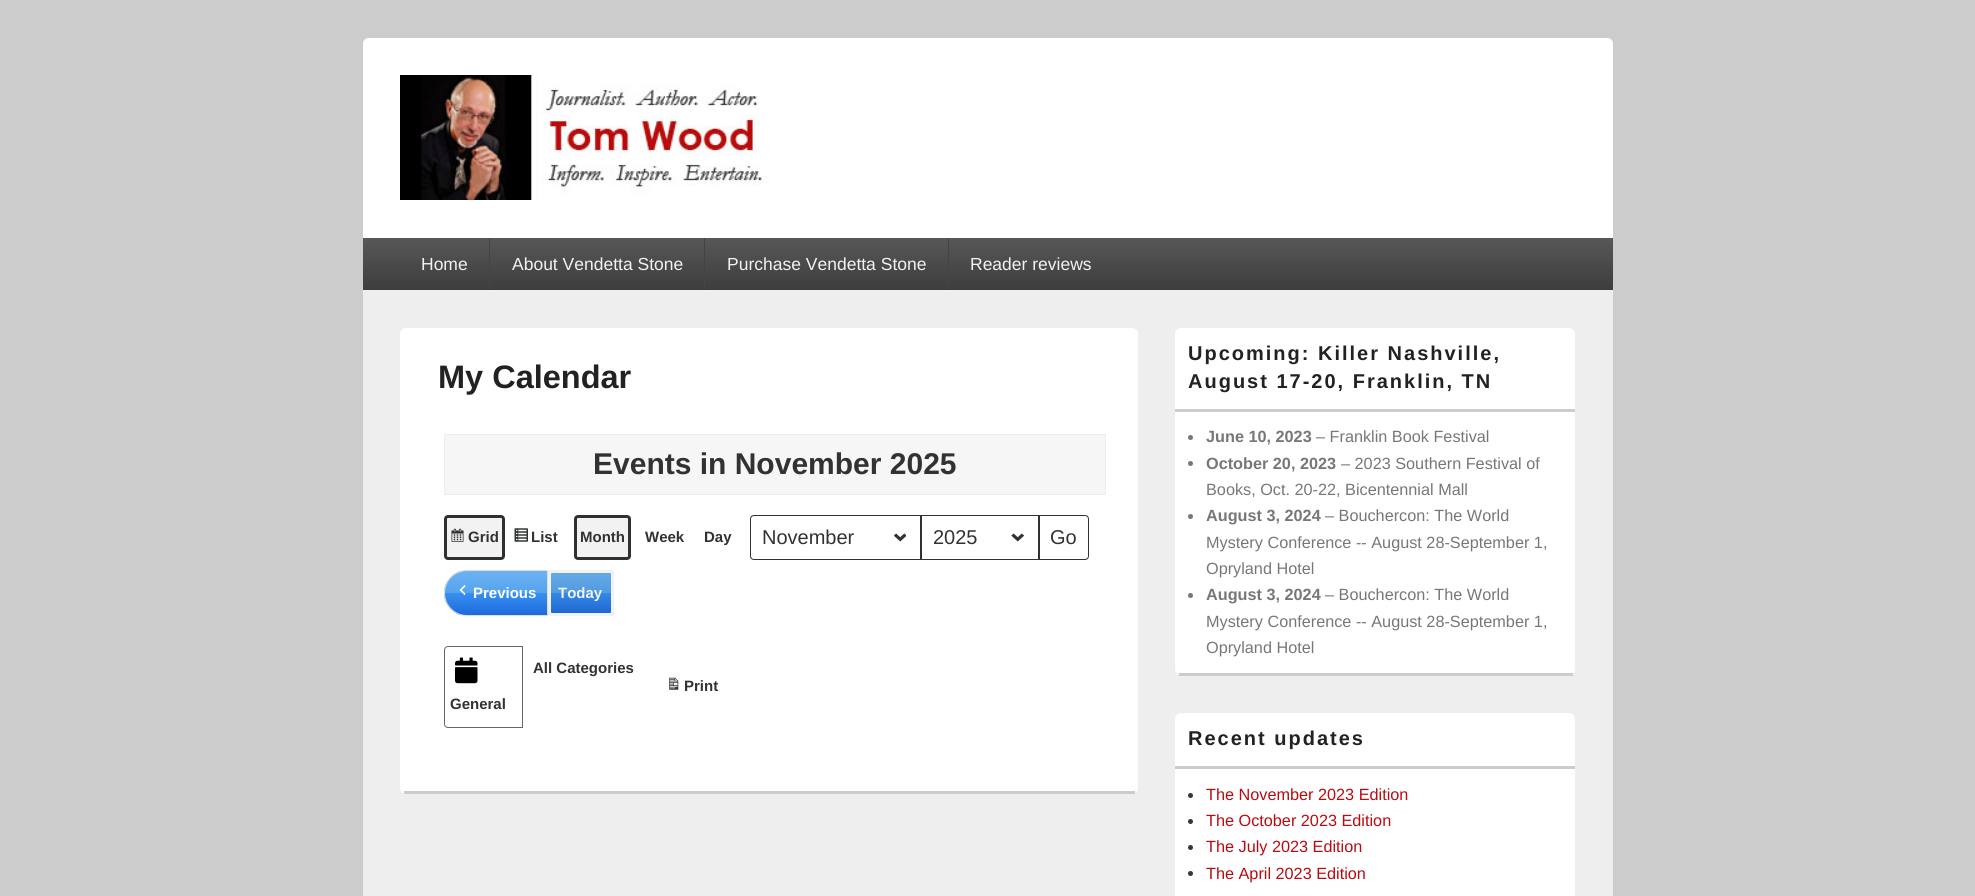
import math
import cairocffi as cairo

surface = cairo.ImageSurface(cairo.FORMAT_RGB24, 1975, 896)
cr = cairo.Context(surface)
options = cairo.FontOptions()
options.set_hint_metrics(cairo.HINT_METRICS_OFF)
options.set_hint_style(cairo.HINT_STYLE_NONE)
cr.set_font_options(options)
cr.set_miter_limit(4)


def use_color(code):
    cr.set_source_rgb(*(v / 255 for v in bytes.fromhex(code[-6:])))


def spaced_text(x, y, s, letter, word):
    cr.move_to(x, y)
    for ch in s:
        cr.show_text(ch)
        cr.rel_move_to(letter + word * (ch == ' '), 0)


def round_rect(x, y, w, h, r):
    cr.new_sub_path()
    for i, (u, v) in enumerate([(x + w - r, y + h - r), (x + r, y + h - r), (x + r, y + r), (x + w - r, y + r)]):
        cr.arc(u, v, r, i * math.pi / 2, (i + 1) * math.pi / 2)
    cr.close_path()


def picture(path, x, y, w, h):
    cr.save()
    cr.set_source_surface(cairo.ImageSurface.create_from_png(path), x, y)
    cr.rectangle(x, y, w, h)
    cr.fill()
    cr.restore()


use_color("#cccccc")
cr.paint()
use_color("#eeeeee")
round_rect(363, 38, 1250, 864, 6)
cr.fill()
use_color("#ffffff")
cr.new_path()
cr.move_to(369, 38)
cr.line_to(1607, 38)
cr.curve_to(1610.5, 38, 1613, 40.5, 1613, 44)
cr.line_to(1613, 290)
cr.line_to(363, 290)
cr.line_to(363, 44)
cr.curve_to(363, 40.5, 365.5, 38, 369, 38)
cr.close_path()
cr.fill()
picture("img1.png", 400, 75, 370, 125)
gradient = cairo.LinearGradient(988, 237, 988, 290)
gradient.add_color_stop_rgba(0, 0.345, 0.345, 0.345, 1)
gradient.add_color_stop_rgba(1, 0.239, 0.239, 0.239, 1)
cr.set_source(gradient)
cr.rectangle(363, 238, 1250, 52)
cr.fill()
cr.select_font_face("Liberation Sans")
cr.set_font_size(17.5)
use_color("#f2f2f2")
cr.move_to(421, 270)
cr.show_text("Home")
use_color("#444444")
cr.rectangle(489, 238, 1, 52)
cr.fill()
use_color("#f2f2f2")
cr.move_to(512, 270)
cr.show_text("About Vendetta Stone")
use_color("#444444")
cr.rectangle(704, 238, 1, 52)
cr.fill()
use_color("#f2f2f2")
cr.move_to(727, 270)
cr.show_text("Purchase Vendetta Stone")
use_color("#444444")
cr.rectangle(948, 238, 1, 52)
cr.fill()
use_color("#f2f2f2")
cr.move_to(970, 270)
cr.show_text("Reader reviews")
use_color("#ffffff")
round_rect(400, 328, 738, 466, 6)
cr.fill()
use_color("#cccccc")
cr.rectangle(404, 791, 731, 3)
cr.fill()
cr.select_font_face("Liberation Sans", cairo.FONT_SLANT_NORMAL, cairo.FONT_WEIGHT_BOLD)
cr.set_font_size(32.5)
use_color("#222222")
cr.move_to(438, 388)
cr.show_text("My Calendar")
use_color("#f6f6f6")
cr.rectangle(444.5, 434.5, 661, 60)
cr.fill_preserve()
use_color("#eeeeee")
cr.set_line_width(1)
cr.stroke()
cr.set_font_size(30)
use_color("#313233")
cr.move_to(593, 474)
cr.show_text("Events in November 2025")
use_color("#f2f2f2")
round_rect(444, 515, 61, 45, 4)
cr.fill()
picture("img2.png", 451, 528, 13, 14)
round_rect(445.5, 516.5, 58, 42, 2.5)
use_color("#2f3030")
cr.set_line_width(3)
cr.stroke()
cr.set_font_size(15)
use_color("#313233")
cr.move_to(468, 542)
cr.show_text("Grid")
picture("img3.png", 514, 528, 14, 14)
cr.move_to(531, 542)
cr.show_text("List")
use_color("#f2f2f2")
round_rect(574, 515, 57, 45, 4)
cr.fill()
round_rect(575.5, 516.5, 54, 42, 2.5)
use_color("#2f3030")
cr.stroke()
use_color("#313233")
cr.move_to(580, 542)
cr.show_text("Month")
cr.move_to(645, 542)
cr.show_text("Week")
cr.move_to(704, 542)
cr.show_text("Day")
use_color("#edf7ff")
cr.rectangle(750, 515, 339, 45)
cr.fill()
use_color("#ffffff")
cr.new_path()
cr.move_to(754, 515)
cr.line_to(921, 515)
cr.line_to(921, 560)
cr.line_to(754, 560)
cr.curve_to(752, 560, 750, 558, 750, 556)
cr.line_to(750, 519)
cr.curve_to(750, 517, 752, 515, 754, 515)
cr.close_path()
cr.fill()
picture("img4.png", 894, 533, 12, 9)
cr.new_path()
cr.move_to(754, 515.5)
cr.line_to(920.5, 515.5)
cr.line_to(920.5, 559.5)
cr.line_to(754, 559.5)
cr.curve_to(752, 559.5, 750.5, 558, 750.5, 556)
cr.line_to(750.5, 519)
cr.curve_to(750.5, 517, 752, 515.5, 754, 515.5)
cr.close_path()
use_color("#313233")
cr.set_line_width(1)
cr.stroke()
cr.select_font_face("Liberation Sans")
cr.set_font_size(20)
cr.move_to(762, 544)
cr.show_text("November")
use_color("#ffffff")
cr.rectangle(922, 516, 116, 43)
cr.fill()
picture("img5.png", 1011, 533, 13, 9)
cr.rectangle(921.5, 515.5, 117, 44)
use_color("#313233")
cr.stroke()
cr.move_to(933, 544)
cr.show_text("2025")
use_color("#ffffff")
cr.new_path()
cr.move_to(1039.5, 515.5)
cr.line_to(1085, 515.5)
cr.curve_to(1087, 515.5, 1088.5, 517, 1088.5, 519)
cr.line_to(1088.5, 556)
cr.curve_to(1088.5, 558, 1087, 559.5, 1085, 559.5)
cr.line_to(1039.5, 559.5)
cr.close_path()
cr.fill_preserve()
use_color("#313233")
cr.stroke()
cr.move_to(1050, 544)
cr.show_text("Go")
cr.save()
cr.new_path()
cr.move_to(467, 570)
cr.line_to(548, 570)
cr.line_to(548, 616)
cr.line_to(467, 616)
cr.curve_to(454.5, 616, 444, 605.5, 444, 593)
cr.curve_to(444, 580.5, 454.5, 570, 467, 570)
cr.close_path()
cr.clip()
gradient = cairo.LinearGradient(496, 571, 496, 615)
gradient.add_color_stop_rgba(0, 0.427, 0.702, 0.949, 1)
gradient.add_color_stop_rgba(0.5, 0.329, 0.639, 0.933, 1)
gradient.add_color_stop_rgba(0.51, 0.212, 0.565, 0.941, 1)
gradient.add_color_stop_rgba(1, 0.118, 0.412, 0.871, 1)
cr.set_source(gradient)
cr.rectangle(444, 571, 103, 44)
cr.fill()
cr.restore()
cr.new_path()
cr.move_to(467, 570.5)
cr.line_to(547.5, 570.5)
cr.line_to(547.5, 615.5)
cr.line_to(467, 615.5)
cr.curve_to(454.5, 615.5, 444.5, 605.5, 444.5, 593)
cr.curve_to(444.5, 580.5, 454.5, 570.5, 467, 570.5)
cr.close_path()
use_color("#dddddd")
cr.stroke()
picture("img6.png", 459, 584, 7, 12)
cr.select_font_face("Liberation Sans", cairo.FONT_SLANT_NORMAL, cairo.FONT_WEIGHT_BOLD)
cr.set_font_size(15)
use_color("#ffffff")
cr.move_to(473, 598)
cr.show_text("Previous")
cr.save()
round_rect(548, 570, 66, 46, 4)
cr.clip()
gradient = cairo.LinearGradient(581, 571, 581, 615)
gradient.add_color_stop_rgba(0, 0.408, 0.667, 0.902, 1)
gradient.add_color_stop_rgba(0.5, 0.314, 0.608, 0.886, 1)
gradient.add_color_stop_rgba(0.51, 0.2, 0.537, 0.894, 1)
gradient.add_color_stop_rgba(1, 0.114, 0.392, 0.827, 1)
cr.set_source(gradient)
cr.rectangle(548, 571, 66, 44)
cr.fill()
cr.restore()
round_rect(548.5, 570.5, 65, 45, 3.5)
use_color("#d2d2d2")
cr.stroke()
round_rect(549.5, 571.5, 63, 43, 2.5)
use_color("#f2f2f2")
cr.set_line_width(3)
cr.stroke()
cr.move_to(558, 598)
cr.show_text("Today")
use_color("#313233")
cr.move_to(533, 673)
cr.show_text("All Categories")
cr.new_path()
cr.move_to(448, 646.5)
cr.line_to(522.5, 646.5)
cr.line_to(522.5, 727.5)
cr.line_to(448, 727.5)
cr.curve_to(446, 727.5, 444.5, 726, 444.5, 724)
cr.line_to(444.5, 650)
cr.curve_to(444.5, 648, 446, 646.5, 448, 646.5)
cr.close_path()
use_color("#666666")
cr.set_line_width(1)
cr.stroke()
picture("img7.png", 455, 657, 23, 27)
use_color("#313233")
cr.move_to(450, 709)
cr.show_text("General")
picture("img8.png", 669, 677, 10, 13)
cr.move_to(684, 691)
cr.show_text("Print")
use_color("#ffffff")
round_rect(1175, 328, 400, 347, 6)
cr.fill()
use_color("#cccccc")
cr.rectangle(1179, 673, 394, 3)
cr.fill()
cr.rectangle(1175, 409, 400, 3)
cr.fill()
cr.set_font_size(20)
use_color("#222222")
spaced_text(1188, 360, "Upcoming: Killer Nashville,", 2, 0)
spaced_text(1188, 388, "August 17-20, Franklin, TN", 2, 0)
use_color("#777777")
cr.new_path()
cr.arc(1190.5, 437.5, 2.5, 0, 2 * math.pi)
cr.fill()
cr.set_font_size(16.25)
cr.move_to(1206, 442)
cr.show_text("June 10, 2023")
cr.select_font_face("Liberation Sans")
cr.move_to(1316, 442)
cr.show_text("– Franklin Book Festival")
cr.new_path()
cr.arc(1190.5, 463.5, 2.5, 0, 2 * math.pi)
cr.fill()
cr.select_font_face("Liberation Sans", cairo.FONT_SLANT_NORMAL, cairo.FONT_WEIGHT_BOLD)
cr.move_to(1206, 469)
cr.show_text("October 20, 2023")
cr.select_font_face("Liberation Sans")
cr.move_to(1341, 469)
cr.show_text("– 2023 Southern Festival of")
cr.move_to(1206, 495)
cr.show_text("Books, Oct. 20-22, Bicentennial Mall")
cr.new_path()
cr.arc(1190.5, 516.5, 2.5, 0, 2 * math.pi)
cr.fill()
cr.select_font_face("Liberation Sans", cairo.FONT_SLANT_NORMAL, cairo.FONT_WEIGHT_BOLD)
cr.move_to(1206, 521)
cr.show_text("August 3, 2024")
cr.select_font_face("Liberation Sans")
cr.move_to(1325, 521)
cr.show_text("– Bouchercon: The World")
cr.move_to(1206, 548)
cr.show_text("Mystery Conference -- August 28-September 1,")
cr.move_to(1206, 574)
cr.show_text("Opryland Hotel")
cr.new_path()
cr.arc(1190.5, 595.5, 2.5, 0, 2 * math.pi)
cr.fill()
cr.select_font_face("Liberation Sans", cairo.FONT_SLANT_NORMAL, cairo.FONT_WEIGHT_BOLD)
cr.move_to(1206, 600)
cr.show_text("August 3, 2024")
cr.select_font_face("Liberation Sans")
cr.move_to(1325, 600)
cr.show_text("– Bouchercon: The World")
cr.move_to(1206, 627)
cr.show_text("Mystery Conference -- August 28-September 1,")
cr.move_to(1206, 653)
cr.show_text("Opryland Hotel")
use_color("#ffffff")
round_rect(1175, 713, 400, 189, 6)
cr.fill()
use_color("#cccccc")
cr.rectangle(1175, 766, 400, 3)
cr.fill()
cr.select_font_face("Liberation Sans", cairo.FONT_SLANT_NORMAL, cairo.FONT_WEIGHT_BOLD)
cr.set_font_size(20)
use_color("#222222")
spaced_text(1188, 745, "Recent updates", 2, 0)
use_color("#373737")
cr.new_path()
cr.arc(1190.5, 795.5, 2.5, 0, 2 * math.pi)
cr.fill()
cr.select_font_face("Liberation Sans")
cr.set_font_size(16.25)
use_color("#b80b11")
cr.move_to(1206, 800)
cr.show_text("The November 2023 Edition")
use_color("#373737")
cr.new_path()
cr.arc(1190.5, 821.5, 2.5, 0, 2 * math.pi)
cr.fill()
use_color("#b80b11")
cr.move_to(1206, 826)
cr.show_text("The October 2023 Edition")
use_color("#373737")
cr.new_path()
cr.arc(1190.5, 847.5, 2.5, 0, 2 * math.pi)
cr.fill()
use_color("#b80b11")
cr.move_to(1206, 852)
cr.show_text("The July 2023 Edition")
use_color("#373737")
cr.new_path()
cr.arc(1190.5, 873.5, 2.5, 0, 2 * math.pi)
cr.fill()
use_color("#b80b11")
cr.move_to(1206, 879)
cr.show_text("The April 2023 Edition")
surface.write_to_png("result.png")
